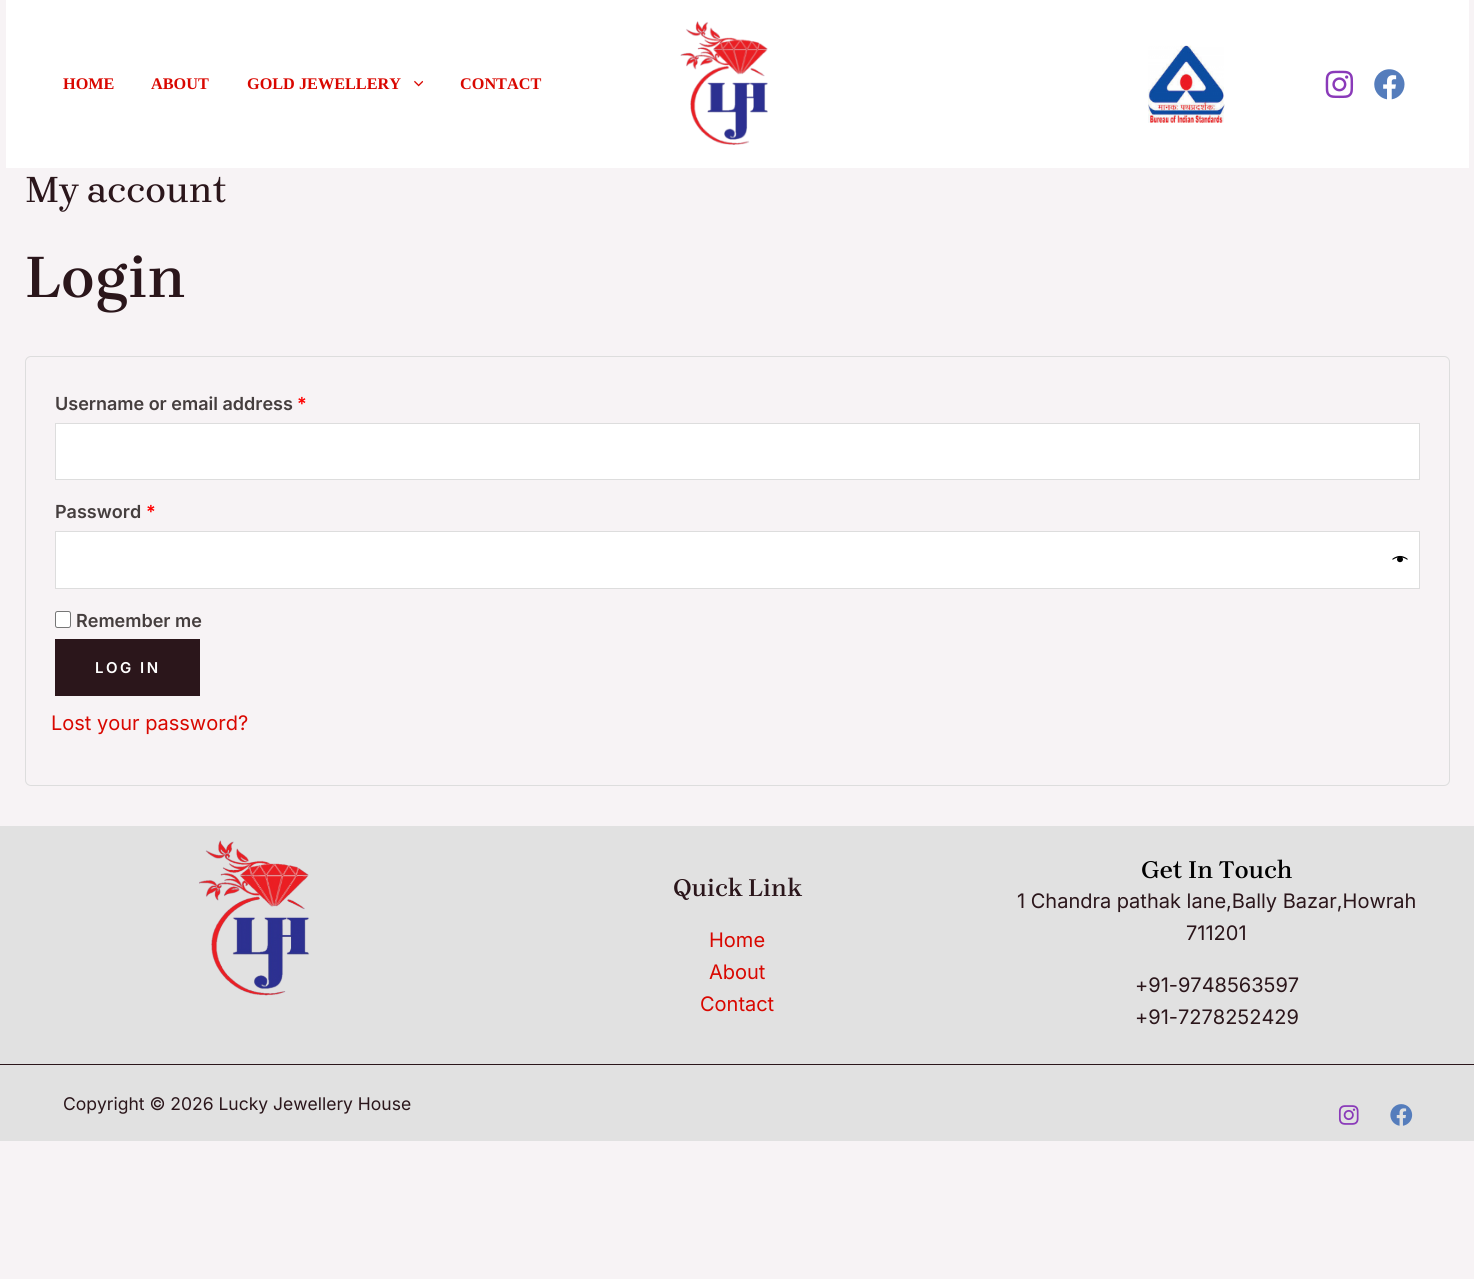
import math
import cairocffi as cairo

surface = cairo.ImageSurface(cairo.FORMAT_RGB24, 1474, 1279)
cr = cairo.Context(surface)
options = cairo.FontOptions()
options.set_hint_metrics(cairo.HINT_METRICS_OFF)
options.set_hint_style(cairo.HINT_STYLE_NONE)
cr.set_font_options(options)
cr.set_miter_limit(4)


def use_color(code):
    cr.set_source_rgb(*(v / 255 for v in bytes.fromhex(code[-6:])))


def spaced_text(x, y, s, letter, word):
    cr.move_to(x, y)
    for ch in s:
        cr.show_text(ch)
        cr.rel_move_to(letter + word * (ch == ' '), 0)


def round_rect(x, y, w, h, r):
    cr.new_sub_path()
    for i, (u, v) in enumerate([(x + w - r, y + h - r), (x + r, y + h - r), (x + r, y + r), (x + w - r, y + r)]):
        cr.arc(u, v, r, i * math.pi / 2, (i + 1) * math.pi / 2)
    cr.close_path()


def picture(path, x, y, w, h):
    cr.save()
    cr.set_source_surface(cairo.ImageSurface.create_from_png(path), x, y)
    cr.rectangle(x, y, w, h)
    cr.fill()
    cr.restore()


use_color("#f7f3f5")
cr.paint()
use_color("#ffffff")
cr.rectangle(6, 0, 1463, 168)
cr.fill()
cr.select_font_face("Liberation Serif", cairo.FONT_SLANT_NORMAL, cairo.FONT_WEIGHT_BOLD)
cr.set_font_size(16.25)
use_color("#d90700")
cr.move_to(63, 89)
cr.show_text("HOME")
cr.move_to(151, 89)
cr.show_text("ABOUT")
cr.move_to(247, 89)
cr.show_text("GOLD JEWELLERY")
picture("img1.png", 414, 80, 9, 7)
cr.move_to(460, 89)
cr.show_text("CONTACT")
picture("img2.png", 680, 21, 88, 124)
picture("img3.png", 1148, 45, 77, 78)
picture("img4.png", 1325, 70, 29, 29)
picture("img5.png", 1374, 69, 31, 31)
cr.select_font_face("Brygada 1918 Medium")
cr.set_font_size(37.5)
use_color("#2b161b")
cr.move_to(25, 202)
cr.show_text("My account")
cr.select_font_face("Brygada 1918 SemiBold")
cr.set_font_size(60)
cr.move_to(25, 297)
cr.show_text("Login")
round_rect(25.5, 356.5, 1424, 429, 5.5)
use_color("#dddddd")
cr.set_line_width(1)
cr.stroke()
cr.select_font_face("Inter SemiBold")
cr.set_font_size(18)
use_color("#453e3e")
cr.move_to(55, 410)
cr.show_text("Username or email address")
use_color("#ff0000")
cr.move_to(297, 410)
cr.show_text("*")
use_color("#ffffff")
cr.rectangle(55.5, 423.5, 1364, 56)
cr.fill_preserve()
use_color("#dddddd")
cr.stroke()
use_color("#453e3e")
cr.move_to(55, 518)
cr.show_text("Password")
use_color("#ff0000")
cr.move_to(146, 518)
cr.show_text("*")
use_color("#ffffff")
cr.rectangle(55.5, 531.5, 1364, 57)
cr.fill_preserve()
use_color("#dddddd")
cr.stroke()
picture("img6.png", 1392, 555, 16, 8)
use_color("#ffffff")
round_rect(55.5, 611.5, 15, 16, 2)
cr.fill_preserve()
use_color("#767676")
cr.stroke()
use_color("#453e3e")
cr.move_to(76, 627)
cr.show_text("Remember me")
use_color("#2b161b")
cr.rectangle(55, 639, 145, 57)
cr.fill()
cr.set_font_size(15)
use_color("#ffffff")
spaced_text(95, 673, "LOG IN", 2.5, 0)
cr.select_font_face("Inter")
cr.set_font_size(20)
use_color("#d90700")
cr.move_to(51, 730)
cr.show_text("Lost your password?")
use_color("#2b161b")
cr.rectangle(0, 1064, 1474, 1)
cr.fill()
use_color("#e1e1e1")
cr.rectangle(0, 826, 1474, 238)
cr.fill()
picture("img7.png", 199, 840, 111, 156)
cr.select_font_face("Brygada 1918 SemiBold")
cr.set_font_size(25)
use_color("#2b161b")
cr.move_to(673, 896)
cr.show_text("Quick Link")
cr.select_font_face("Inter")
cr.set_font_size(20)
use_color("#d90700")
cr.move_to(709, 947)
cr.show_text("Home")
cr.move_to(709, 979)
cr.show_text("About")
cr.move_to(700, 1011)
cr.show_text("Contact")
cr.select_font_face("Brygada 1918 SemiBold")
cr.set_font_size(25)
use_color("#000000")
cr.move_to(1141, 878)
cr.show_text("Get In Touch")
cr.select_font_face("Inter")
cr.set_font_size(20)
use_color("#2b161b")
cr.move_to(1017, 908)
cr.show_text("1 Chandra pathak lane,Bally Bazar,Howrah")
cr.move_to(1186, 940)
cr.show_text("711201")
cr.move_to(1135, 992)
cr.show_text("+91-9748563597")
cr.move_to(1135, 1024)
cr.show_text("+91-7278252429")
use_color("#e1e1e1")
cr.rectangle(0, 1065, 1474, 76)
cr.fill()
cr.set_font_size(17.5)
use_color("#2b161b")
cr.move_to(63, 1110)
cr.show_text("Copyright © 2026 Lucky Jewellery House")
picture("img8.png", 1338, 1105, 21, 20)
picture("img9.png", 1390, 1104, 23, 22)
surface.write_to_png("result.png")
